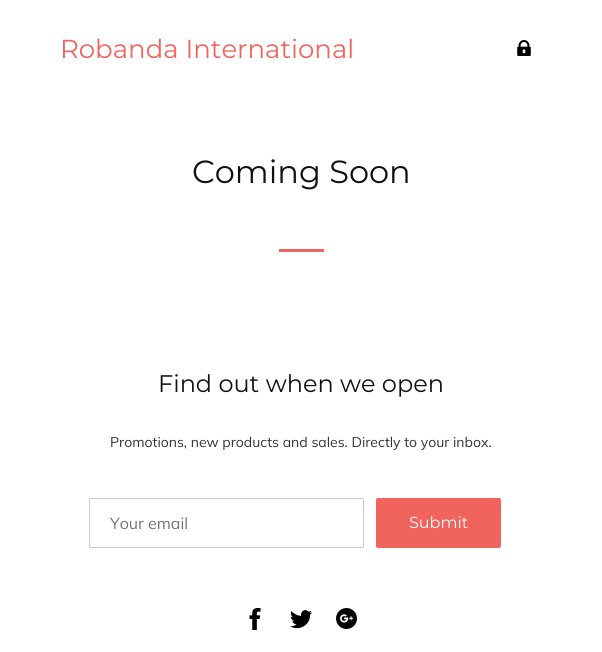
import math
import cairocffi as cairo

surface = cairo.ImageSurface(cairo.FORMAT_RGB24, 602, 652)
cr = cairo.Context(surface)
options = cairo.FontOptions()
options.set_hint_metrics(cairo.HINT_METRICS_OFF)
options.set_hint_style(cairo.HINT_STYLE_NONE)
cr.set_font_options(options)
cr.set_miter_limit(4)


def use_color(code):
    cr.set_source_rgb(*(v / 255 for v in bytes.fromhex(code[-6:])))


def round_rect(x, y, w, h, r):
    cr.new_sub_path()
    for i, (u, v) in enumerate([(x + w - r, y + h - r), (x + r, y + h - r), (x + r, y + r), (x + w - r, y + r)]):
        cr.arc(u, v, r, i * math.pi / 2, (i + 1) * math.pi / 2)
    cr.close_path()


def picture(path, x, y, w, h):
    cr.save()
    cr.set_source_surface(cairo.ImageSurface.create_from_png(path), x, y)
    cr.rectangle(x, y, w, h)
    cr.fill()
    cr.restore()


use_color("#ffffff")
cr.paint()
cr.select_font_face("Montserrat")
cr.set_font_size(26)
use_color("#f1645d")
cr.move_to(60, 58)
cr.show_text("Robanda International")
picture("img1.png", 517, 40, 14, 16)
cr.set_font_size(32)
use_color("#111111")
cr.move_to(192, 183)
cr.show_text("Coming Soon")
use_color("#f1645d")
cr.rectangle(279, 249, 45, 3)
cr.fill()
cr.set_font_size(24)
use_color("#111111")
cr.move_to(158, 392)
cr.show_text("Find out when we open")
cr.select_font_face("Muli")
cr.set_font_size(14)
use_color("#343434")
cr.move_to(110, 447)
cr.show_text("Promotions, new products and sales. Directly to your inbox.")
round_rect(89.5, 498.5, 274, 49, 1.5)
use_color("#cacaca")
cr.set_line_width(1)
cr.stroke()
cr.set_font_size(16)
use_color("#757575")
cr.move_to(110, 529)
cr.show_text("Your email")
use_color("#f1645d")
round_rect(376, 498, 125, 50, 2)
cr.fill()
cr.select_font_face("Montserrat")
use_color("#ffffff")
cr.move_to(409, 528)
cr.show_text("Submit")
picture("img2.png", 249, 608, 12, 22)
picture("img3.png", 290, 610, 22, 19)
picture("img4.png", 336, 608, 21, 21)
surface.write_to_png("result.png")
